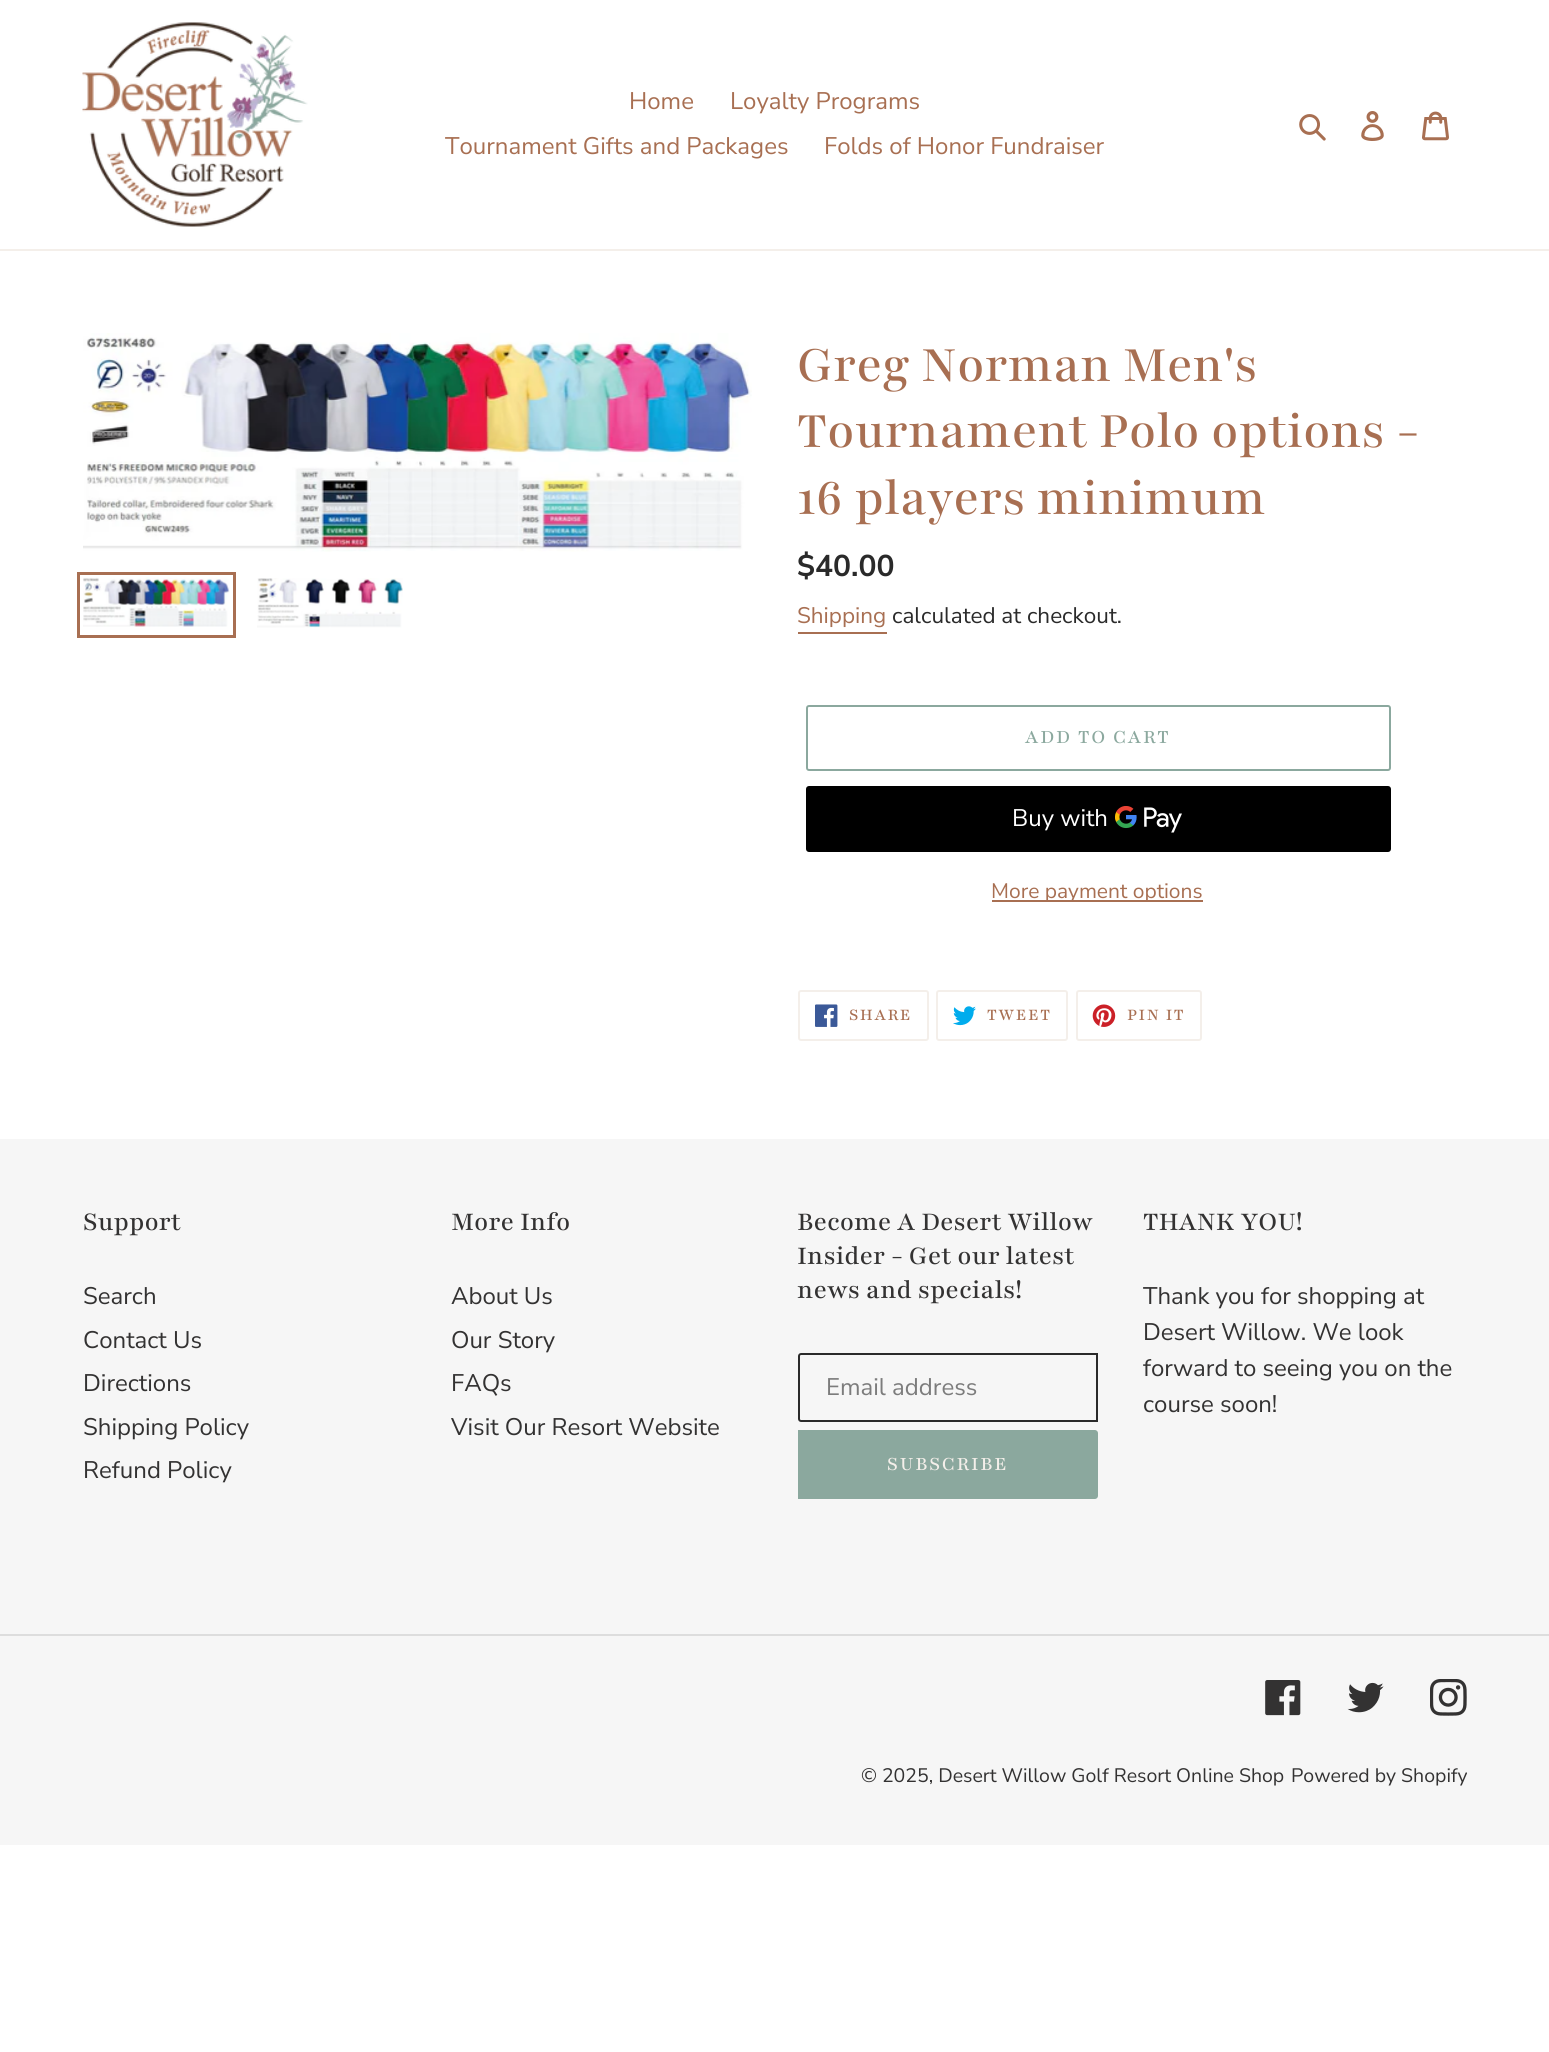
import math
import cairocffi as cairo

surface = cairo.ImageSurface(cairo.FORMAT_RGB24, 1549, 2052)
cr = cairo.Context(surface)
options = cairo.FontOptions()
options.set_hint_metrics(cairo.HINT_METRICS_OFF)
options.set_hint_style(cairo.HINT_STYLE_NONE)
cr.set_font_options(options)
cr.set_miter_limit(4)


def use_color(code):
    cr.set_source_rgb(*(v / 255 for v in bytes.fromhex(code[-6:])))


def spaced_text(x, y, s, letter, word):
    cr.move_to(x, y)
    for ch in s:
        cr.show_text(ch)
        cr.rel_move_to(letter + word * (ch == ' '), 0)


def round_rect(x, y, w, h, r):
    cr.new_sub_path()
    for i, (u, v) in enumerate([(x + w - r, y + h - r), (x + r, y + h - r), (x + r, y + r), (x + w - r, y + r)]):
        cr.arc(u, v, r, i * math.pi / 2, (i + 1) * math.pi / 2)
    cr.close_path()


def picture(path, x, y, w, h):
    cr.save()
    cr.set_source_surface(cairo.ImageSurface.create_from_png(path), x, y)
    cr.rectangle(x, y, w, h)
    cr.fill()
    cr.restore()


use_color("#ffffff")
cr.paint()
use_color("#f4efea")
cr.rectangle(0, 249, 1549, 2)
cr.fill()
picture("img1.png", 82, 22, 226, 205)
cr.select_font_face("Nunito Sans")
cr.set_font_size(24)
use_color("#a86f52")
cr.move_to(629, 109)
cr.show_text("Home")
cr.move_to(730, 109)
cr.show_text("Loyalty Programs")
cr.move_to(445, 154)
cr.show_text("Tournament Gifts and Packages")
cr.move_to(824, 154)
cr.show_text("Folds of Honor Fundraiser")
picture("img2.png", 1299, 114, 27, 27)
picture("img3.png", 1361, 111, 23, 30)
picture("img4.png", 1422, 111, 27, 30)
picture("img5.png", 83, 333, 669, 219)
cr.rectangle(78.5, 573.5, 156, 63)
cr.set_line_width(3)
cr.stroke()
picture("img6.png", 83, 577, 147, 50)
picture("img7.png", 257, 578, 146, 50)
cr.select_font_face("Playfair Medium")
cr.set_font_size(55.5)
cr.move_to(797, 381)
cr.show_text("Greg Norman Men's")
cr.move_to(797, 447)
cr.show_text("Tournament Polo options -")
cr.move_to(797, 514)
cr.show_text("16 players minimum")
cr.select_font_face("Nunito Sans", cairo.FONT_SLANT_NORMAL, cairo.FONT_WEIGHT_BOLD)
cr.set_font_size(30)
use_color("#2a2a2a")
cr.move_to(797, 576)
cr.show_text("$40.00")
cr.select_font_face("Nunito Sans")
cr.set_font_size(22.5)
use_color("#a86f52")
cr.move_to(797, 623)
cr.show_text("Shipping")
cr.rectangle(798, 632, 89, 2)
cr.fill()
use_color("#2a2a2a")
cr.move_to(892, 623)
cr.show_text("calculated at checkout.")
round_rect(807, 706, 583, 64, 2)
use_color("#8ba89e")
cr.set_line_width(2)
cr.stroke()
cr.select_font_face("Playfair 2 Medium")
cr.set_font_size(21)
spaced_text(1025, 743, "ADD TO CART", 1.75, 0)
use_color("#000000")
round_rect(806, 786, 585, 66, 3)
cr.fill()
cr.select_font_face("Nunito Sans")
cr.set_font_size(24)
use_color("#ffffff")
cr.move_to(1012, 826)
cr.show_text("Buy with")
picture("img8.png", 1115, 806, 67, 27)
use_color("#a86f52")
cr.rectangle(992, 900, 211, 2)
cr.fill()
cr.set_font_size(21)
cr.move_to(991, 898)
cr.show_text("More payment options")
round_rect(799, 991, 129, 49, 2)
use_color("#f4efea")
cr.stroke()
picture("img9.png", 815, 1004, 23, 23)
cr.select_font_face("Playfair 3 Medium")
cr.set_font_size(18)
use_color("#a86f52")
spaced_text(849, 1020, "SHARE", 1.5, 0)
round_rect(937, 991, 130, 49, 2)
use_color("#f4efea")
cr.stroke()
picture("img10.png", 953, 1006, 23, 20)
use_color("#a86f52")
spaced_text(987, 1020, "TWEET", 1.5, 0)
round_rect(1077, 991, 124, 49, 2)
use_color("#f4efea")
cr.stroke()
picture("img11.png", 1092, 1004, 24, 23)
use_color("#a86f52")
spaced_text(1127, 1020, "PIN IT", 1.5, 0)
use_color("#f6f6f6")
cr.rectangle(0, 1139, 1549, 706)
cr.fill()
cr.select_font_face("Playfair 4 Medium")
cr.set_font_size(28.5)
use_color("#333232")
cr.move_to(83, 1230)
cr.show_text("Support")
cr.select_font_face("Nunito Sans")
cr.set_font_size(24)
cr.move_to(83, 1304)
cr.show_text("Search")
cr.move_to(83, 1348)
cr.show_text("Contact Us")
cr.move_to(83, 1391)
cr.show_text("Directions")
cr.move_to(83, 1435)
cr.show_text("Shipping Policy")
cr.move_to(83, 1478)
cr.show_text("Refund Policy")
cr.select_font_face("Playfair 4 Medium")
cr.set_font_size(28.5)
cr.move_to(451, 1230)
cr.show_text("More Info")
cr.select_font_face("Nunito Sans")
cr.set_font_size(24)
cr.move_to(451, 1304)
cr.show_text("About Us")
cr.move_to(451, 1348)
cr.show_text("Our Story")
cr.move_to(451, 1391)
cr.show_text("FAQs")
cr.move_to(451, 1435)
cr.show_text("Visit Our Resort Website")
cr.select_font_face("Playfair 4 Medium")
cr.set_font_size(28.5)
cr.move_to(797, 1230)
cr.show_text("Become A Desert Willow")
cr.move_to(797, 1264)
cr.show_text("Insider - Get our latest")
cr.move_to(797, 1298)
cr.show_text("news and specials!")
cr.new_path()
cr.move_to(801, 1354)
cr.line_to(1097, 1354)
cr.line_to(1097, 1421)
cr.line_to(801, 1421)
cr.curve_to(800, 1421, 799, 1420, 799, 1419)
cr.line_to(799, 1356)
cr.curve_to(799, 1355, 800, 1354, 801, 1354)
cr.close_path()
use_color("#2a2a2a")
cr.stroke()
cr.select_font_face("Nunito Sans")
cr.set_font_size(24)
use_color("#7c7c7c")
cr.move_to(826, 1395)
cr.show_text("Email address")
use_color("#8ba89e")
cr.new_path()
cr.move_to(798, 1430)
cr.line_to(1095, 1430)
cr.curve_to(1096.5, 1430, 1098, 1431.5, 1098, 1433)
cr.line_to(1098, 1496)
cr.curve_to(1098, 1497.5, 1096.5, 1499, 1095, 1499)
cr.line_to(798, 1499)
cr.close_path()
cr.fill()
cr.select_font_face("Playfair 2 Medium")
cr.set_font_size(21)
use_color("#f4efea")
spaced_text(887, 1470, "SUBSCRIBE", 1.75, 0)
cr.select_font_face("Playfair 4 Medium")
cr.set_font_size(28.5)
use_color("#333232")
cr.move_to(1143, 1230)
cr.show_text("THANK YOU!")
cr.select_font_face("Nunito Sans")
cr.set_font_size(24)
cr.move_to(1143, 1304)
cr.show_text("Thank you for shopping at")
cr.move_to(1143, 1340)
cr.show_text("Desert Willow. We look")
cr.move_to(1143, 1376)
cr.show_text("forward to seeing you on the")
cr.move_to(1143, 1412)
cr.show_text("course soon!")
use_color("#dddddd")
cr.rectangle(0, 1634, 1549, 2)
cr.fill()
picture("img12.png", 1265, 1680, 36, 36)
picture("img13.png", 1347, 1682, 37, 31)
picture("img14.png", 1430, 1679, 37, 37)
cr.set_font_size(19.5)
use_color("#333232")
cr.move_to(861, 1782)
cr.show_text("© 2025, Desert Willow Golf Resort Online Shop")
cr.move_to(1291, 1782)
cr.show_text("Powered by Shopify")
surface.write_to_png("result.png")
